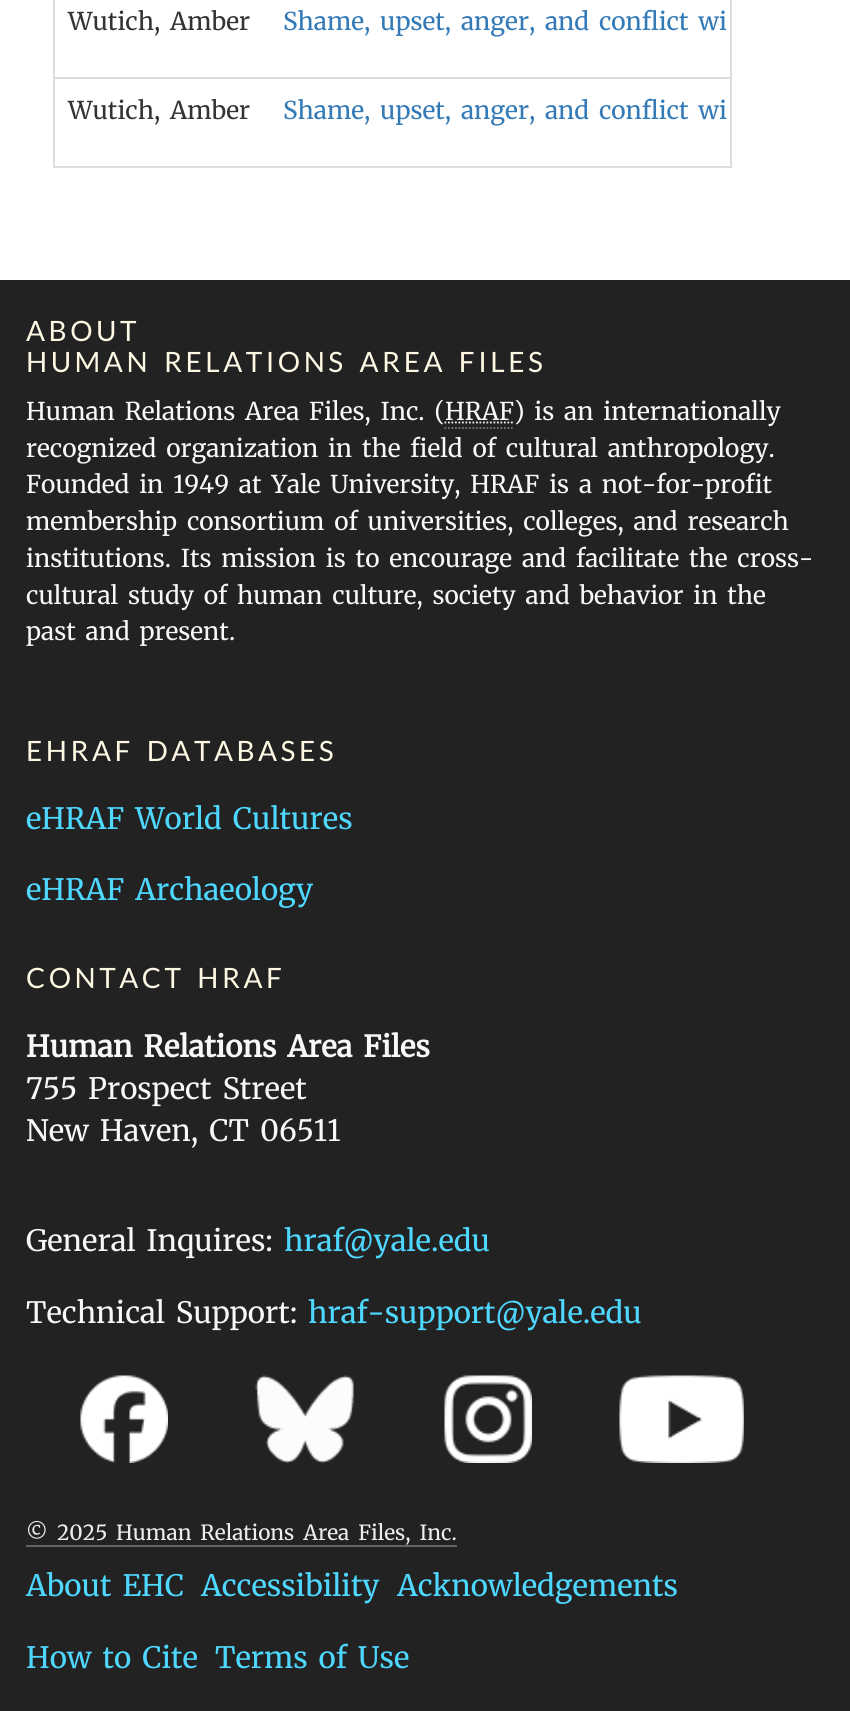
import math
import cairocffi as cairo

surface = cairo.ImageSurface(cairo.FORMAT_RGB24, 850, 1711)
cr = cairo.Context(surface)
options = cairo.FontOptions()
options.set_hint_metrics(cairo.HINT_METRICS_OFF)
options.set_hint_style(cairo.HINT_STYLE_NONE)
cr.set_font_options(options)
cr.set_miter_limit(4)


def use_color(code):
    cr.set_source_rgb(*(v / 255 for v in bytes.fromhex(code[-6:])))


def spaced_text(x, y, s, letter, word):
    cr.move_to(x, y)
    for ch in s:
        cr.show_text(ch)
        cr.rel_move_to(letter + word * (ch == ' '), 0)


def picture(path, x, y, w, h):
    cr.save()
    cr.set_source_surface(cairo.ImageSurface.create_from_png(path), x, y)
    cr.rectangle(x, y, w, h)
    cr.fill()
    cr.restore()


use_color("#222222")
cr.paint()
use_color("#ffffff")
cr.rectangle(0, 0, 850, 280)
cr.fill()
cr.rectangle(54, -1, 677, 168)
use_color("#dddddd")
cr.stroke()
cr.select_font_face("Merriweather Light")
cr.set_font_size(24.5)
use_color("#333333")
spaced_text(68, 30, "Wutich, Amber", 0, 4)
use_color("#337ab7")
spaced_text(283, 30, "Shame, upset, anger, and conflict wi", 0, 4)
use_color("#333333")
spaced_text(68, 119, "Wutich, Amber", 0, 4)
use_color("#dddddd")
cr.rectangle(54, 77, 676, 2)
cr.fill()
use_color("#337ab7")
spaced_text(283, 119, "Shame, upset, anger, and conflict wi", 0, 4)
cr.select_font_face("Lato")
cr.set_font_size(28)
use_color("#fcf8e3")
spaced_text(26, 341, "ABOUT", 3.5, 0)
spaced_text(26, 372, "HUMAN RELATIONS AREA FILES", 3.5, 4)
cr.select_font_face("Merriweather Light")
cr.set_font_size(24.5)
use_color("#f8f8f8")
spaced_text(26, 420, "Human Relations Area Files, Inc. (", 0, 4)
cr.move_to(445, 420)
cr.show_text("HRAF")
cr.new_path()
cr.move_to(444.5, 428)
cr.line_to(514.5, 428)
use_color("#777777")
cr.set_line_width(1.8)
cr.set_dash([1.75, 1.75])
cr.stroke()
cr.new_path()
cr.move_to(444.5, 422.5)
cr.line_to(514, 422.5)
use_color("#f8f8f8")
cr.stroke()
spaced_text(514, 420, ") is an internationally", 0, 4)
spaced_text(26, 457, "recognized organization in the field of cultural anthropology.", 0, 4)
spaced_text(26, 493, "Founded in 1949 at Yale University, HRAF is a not-for-profit", 0, 4)
spaced_text(26, 530, "membership consortium of universities, colleges, and research", 0, 4)
spaced_text(26, 567, "institutions. Its mission is to encourage and facilitate the cross-", 0, 4)
spaced_text(26, 604, "cultural study of human culture, society and behavior in the", 0, 4)
spaced_text(26, 640, "past and present.", 0, 4)
cr.select_font_face("Lato")
cr.set_font_size(28)
use_color("#fcf8e3")
spaced_text(26, 761, "EHRAF DATABASES", 3.5, 4)
cr.select_font_face("Merriweather Light")
cr.set_font_size(29.4)
use_color("#4fd8ff")
spaced_text(26, 829, "eHRAF World Cultures", 0, 4)
spaced_text(26, 900, "eHRAF Archaeology", 0, 4)
cr.select_font_face("Lato")
cr.set_font_size(28)
use_color("#fcf8e3")
spaced_text(26, 988, "CONTACT HRAF", 3.5, 4)
cr.select_font_face("Merriweather", cairo.FONT_SLANT_NORMAL, cairo.FONT_WEIGHT_BOLD)
cr.set_font_size(29.4)
use_color("#f8f8f8")
spaced_text(26, 1057, "Human Relations Area Files", 0, 4)
cr.select_font_face("Merriweather Light")
spaced_text(26, 1099, "755 Prospect Street", 0, 4)
spaced_text(26, 1141, "New Haven, CT 06511", 0, 4)
spaced_text(26, 1251, "General Inquires:", 0, 4)
use_color("#4fd8ff")
cr.move_to(284, 1251)
cr.show_text("hraf@yale.edu")
use_color("#f8f8f8")
spaced_text(26, 1323, "Technical Support:", 0, 4)
use_color("#4fd8ff")
cr.move_to(308, 1323)
cr.show_text("hraf-support@yale.edu")
picture("img1.png", 80, 1375, 88, 88)
picture("img2.png", 255, 1375, 99, 88)
picture("img3.png", 444, 1375, 88, 88)
picture("img4.png", 619, 1375, 125, 88)
cr.set_font_size(20.8)
use_color("#eeeeee")
cr.move_to(26, 1540)
cr.show_text("©")
cr.move_to(57, 1540)
cr.show_text("2025")
spaced_text(116, 1540, "Human Relations Area Files, Inc.", 0, 4)
use_color("#636363")
cr.rectangle(26, 1545, 431, 2)
cr.fill()
cr.set_font_size(29.4)
use_color("#4fd8ff")
spaced_text(26, 1596, "About EHC", 0, 4)
cr.move_to(201, 1596)
cr.show_text("Accessibility")
cr.move_to(397, 1596)
cr.show_text("Acknowledgements")
spaced_text(26, 1668, "How to Cite", 0, 4)
spaced_text(215, 1668, "Terms of Use", 0, 4)
surface.write_to_png("result.png")
